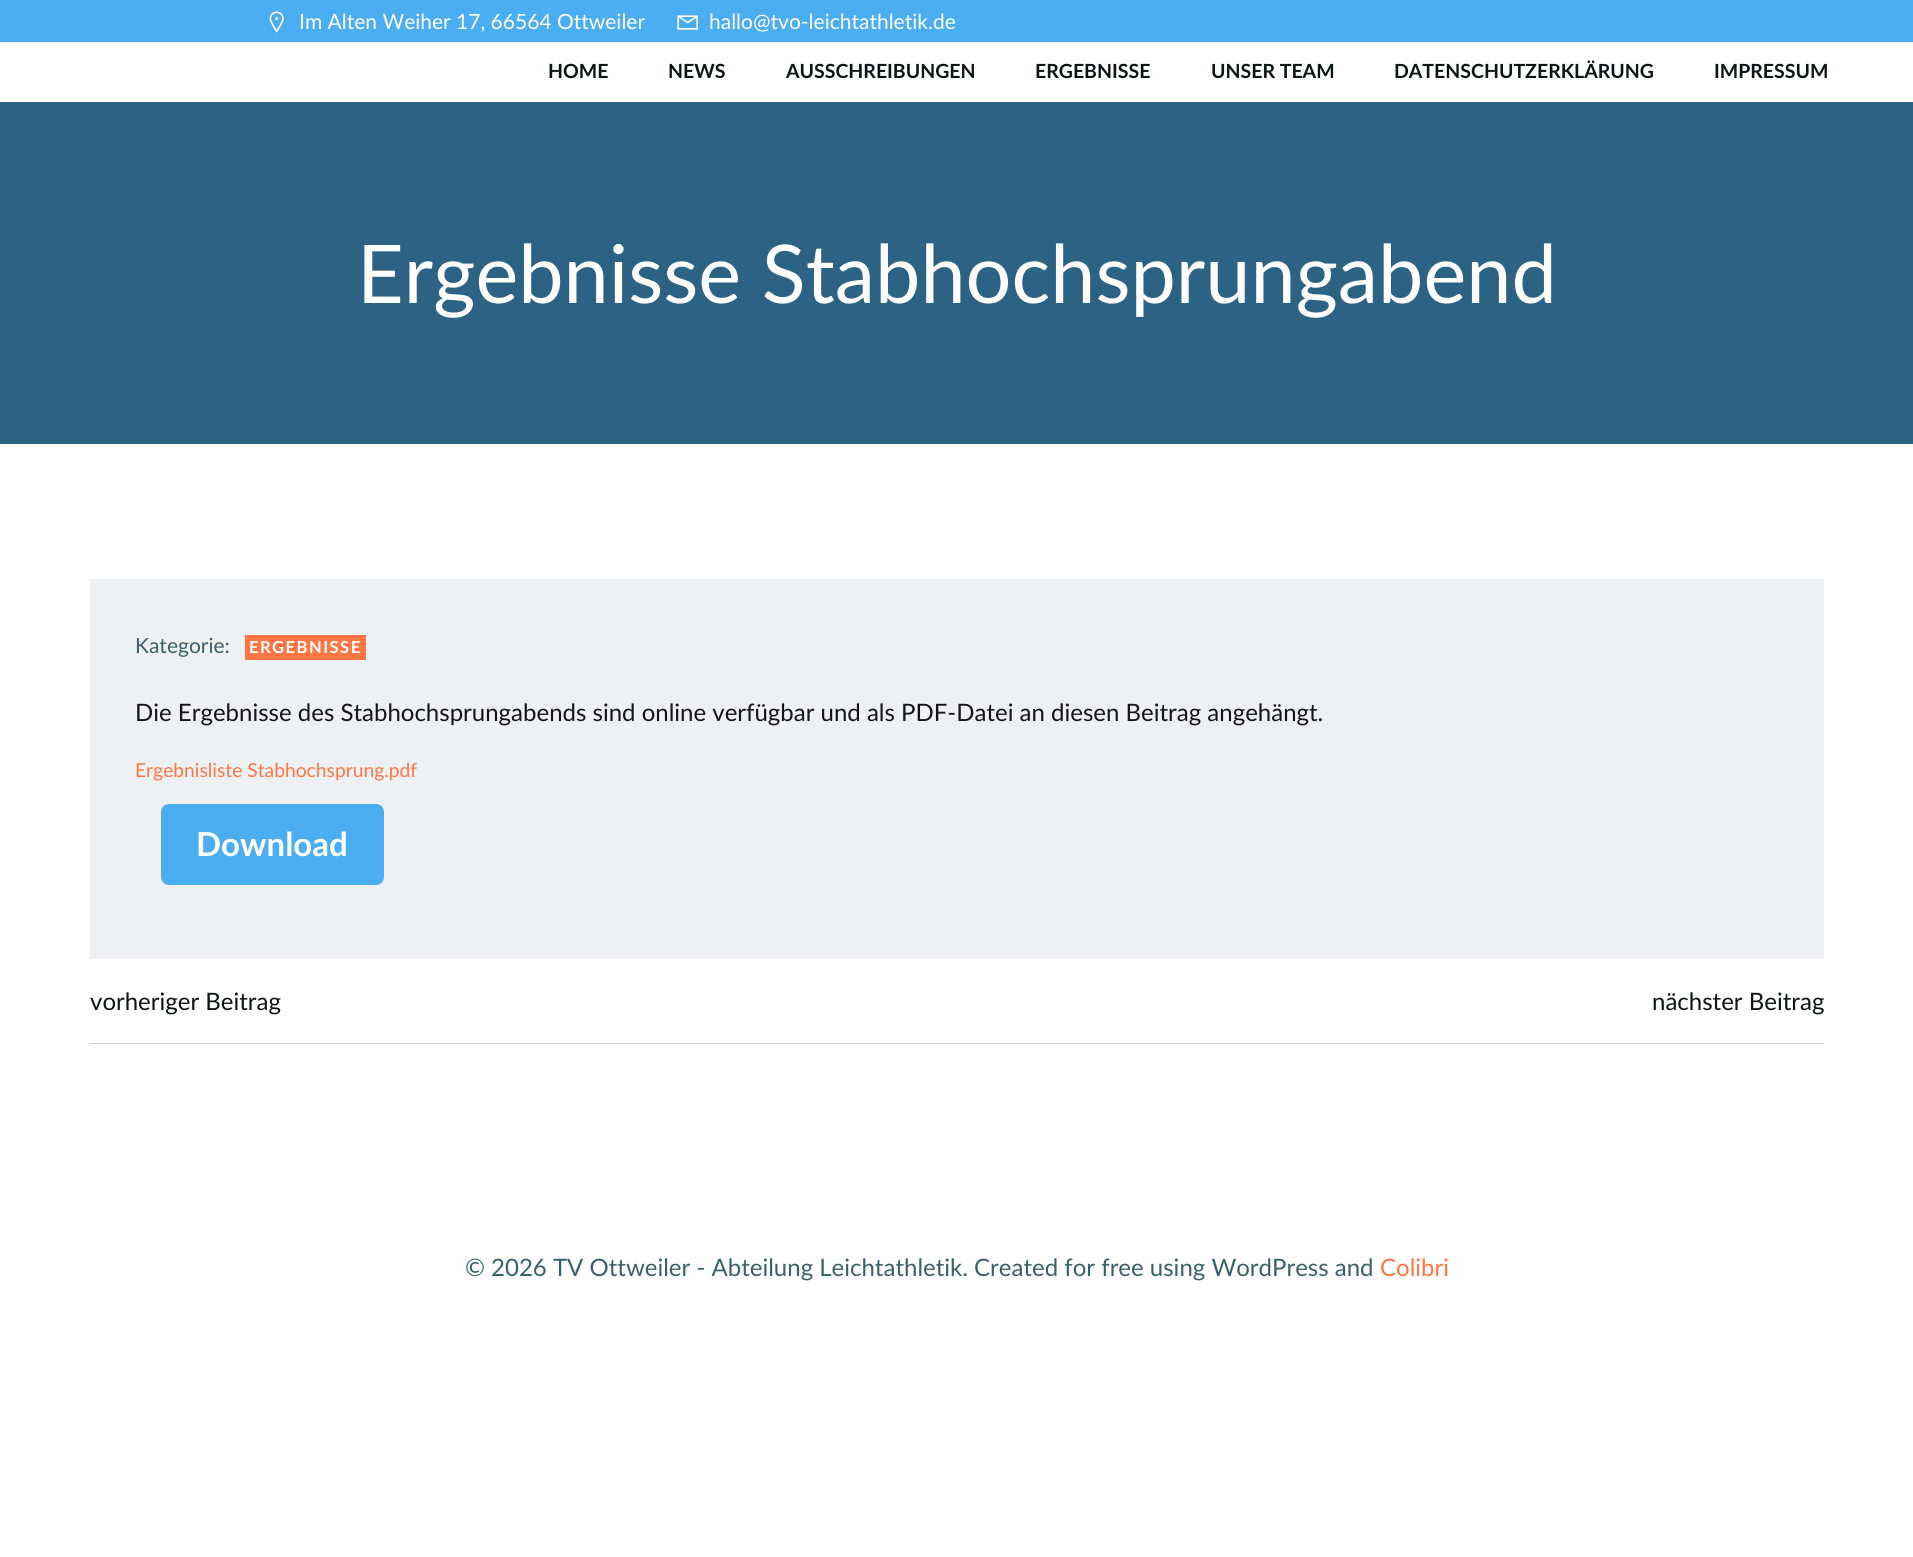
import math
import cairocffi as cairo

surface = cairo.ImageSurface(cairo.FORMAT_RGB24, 1913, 1557)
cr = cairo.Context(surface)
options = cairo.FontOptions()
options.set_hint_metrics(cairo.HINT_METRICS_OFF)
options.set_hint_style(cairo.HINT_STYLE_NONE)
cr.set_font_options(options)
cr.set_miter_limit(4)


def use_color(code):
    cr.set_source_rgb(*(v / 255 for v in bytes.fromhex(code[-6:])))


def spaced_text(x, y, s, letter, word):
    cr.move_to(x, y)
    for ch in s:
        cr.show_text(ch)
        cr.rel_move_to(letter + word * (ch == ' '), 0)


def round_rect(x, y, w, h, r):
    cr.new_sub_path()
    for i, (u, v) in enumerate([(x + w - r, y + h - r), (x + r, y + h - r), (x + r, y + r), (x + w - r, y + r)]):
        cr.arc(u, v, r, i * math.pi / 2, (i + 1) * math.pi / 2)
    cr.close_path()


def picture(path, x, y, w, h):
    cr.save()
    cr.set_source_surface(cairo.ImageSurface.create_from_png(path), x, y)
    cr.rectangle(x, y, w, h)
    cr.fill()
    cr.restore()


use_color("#ffffff")
cr.paint()
use_color("#4baef3")
cr.rectangle(0, 0, 1913, 42)
cr.fill()
picture("img1.png", 269, 11, 15, 22)
cr.select_font_face("Lato")
cr.set_font_size(21)
use_color("#ffffff")
cr.move_to(299, 29)
cr.show_text("Im Alten Weiher 17, 66564 Ottweiler")
picture("img2.png", 677, 15, 21, 15)
cr.move_to(709, 29)
cr.show_text("hallo@tvo-leichtathletik.de")
cr.select_font_face("Lato", cairo.FONT_SLANT_NORMAL, cairo.FONT_WEIGHT_BOLD)
cr.set_font_size(19.5)
use_color("#0c1416")
cr.move_to(548, 78)
cr.show_text("HOME")
cr.move_to(668, 78)
cr.show_text("NEWS")
cr.move_to(786, 78)
cr.show_text("AUSSCHREIBUNGEN")
cr.move_to(1035, 78)
cr.show_text("ERGEBNISSE")
cr.move_to(1211, 78)
cr.show_text("UNSER TEAM")
cr.move_to(1394, 78)
cr.show_text("DATENSCHUTZERKLÄRUNG")
cr.move_to(1714, 78)
cr.show_text("IMPRESSUM")
use_color("#2c6284")
cr.rectangle(0, 102, 1913, 342)
cr.fill()
cr.select_font_face("Lato")
cr.set_font_size(81)
use_color("#ffffff")
cr.move_to(357, 303)
cr.show_text("Ergebnisse Stabhochsprungabend")
use_color("#edf1f3")
cr.rectangle(90, 579, 1734, 380)
cr.fill()
cr.set_font_size(21)
use_color("#3a616b")
cr.move_to(135, 653)
cr.show_text("Kategorie:")
use_color("#ff7643")
cr.rectangle(245, 635, 121, 25)
cr.fill()
cr.select_font_face("Lato", cairo.FONT_SLANT_NORMAL, cairo.FONT_WEIGHT_BOLD)
cr.set_font_size(16.5)
use_color("#ffffff")
spaced_text(249, 653, "ERGEBNISSE", 1.5, 0)
cr.select_font_face("Lato")
cr.set_font_size(24)
use_color("#131516")
cr.move_to(135, 721)
cr.show_text("Die Ergebnisse des Stabhochsprungabends sind online verfügbar und als PDF-Datei an diesen Beitrag angehängt.")
cr.set_font_size(19.25)
use_color("#ff7643")
cr.move_to(135, 777)
cr.show_text("Ergebnisliste Stabhochsprung.pdf")
use_color("#4baef3")
round_rect(161, 804, 223, 81, 8)
cr.fill()
cr.select_font_face("Lato", cairo.FONT_SLANT_NORMAL, cairo.FONT_WEIGHT_BOLD)
cr.set_font_size(33)
use_color("#ffffff")
cr.move_to(196, 856)
cr.show_text("Download")
use_color("#c8d4da")
cr.rectangle(90, 1043, 1734, 1)
cr.fill()
cr.select_font_face("Lato")
cr.set_font_size(24)
use_color("#0c1416")
cr.move_to(90, 1010)
cr.show_text("vorheriger Beitrag")
cr.move_to(1652, 1010)
cr.show_text("nächster Beitrag")
use_color("#3a616b")
cr.move_to(465, 1276)
cr.show_text("© 2026 TV Ottweiler - Abteilung Leichtathletik. Created for free using WordPress and")
use_color("#ff7643")
cr.move_to(1380, 1276)
cr.show_text("Colibri")
surface.write_to_png("result.png")
